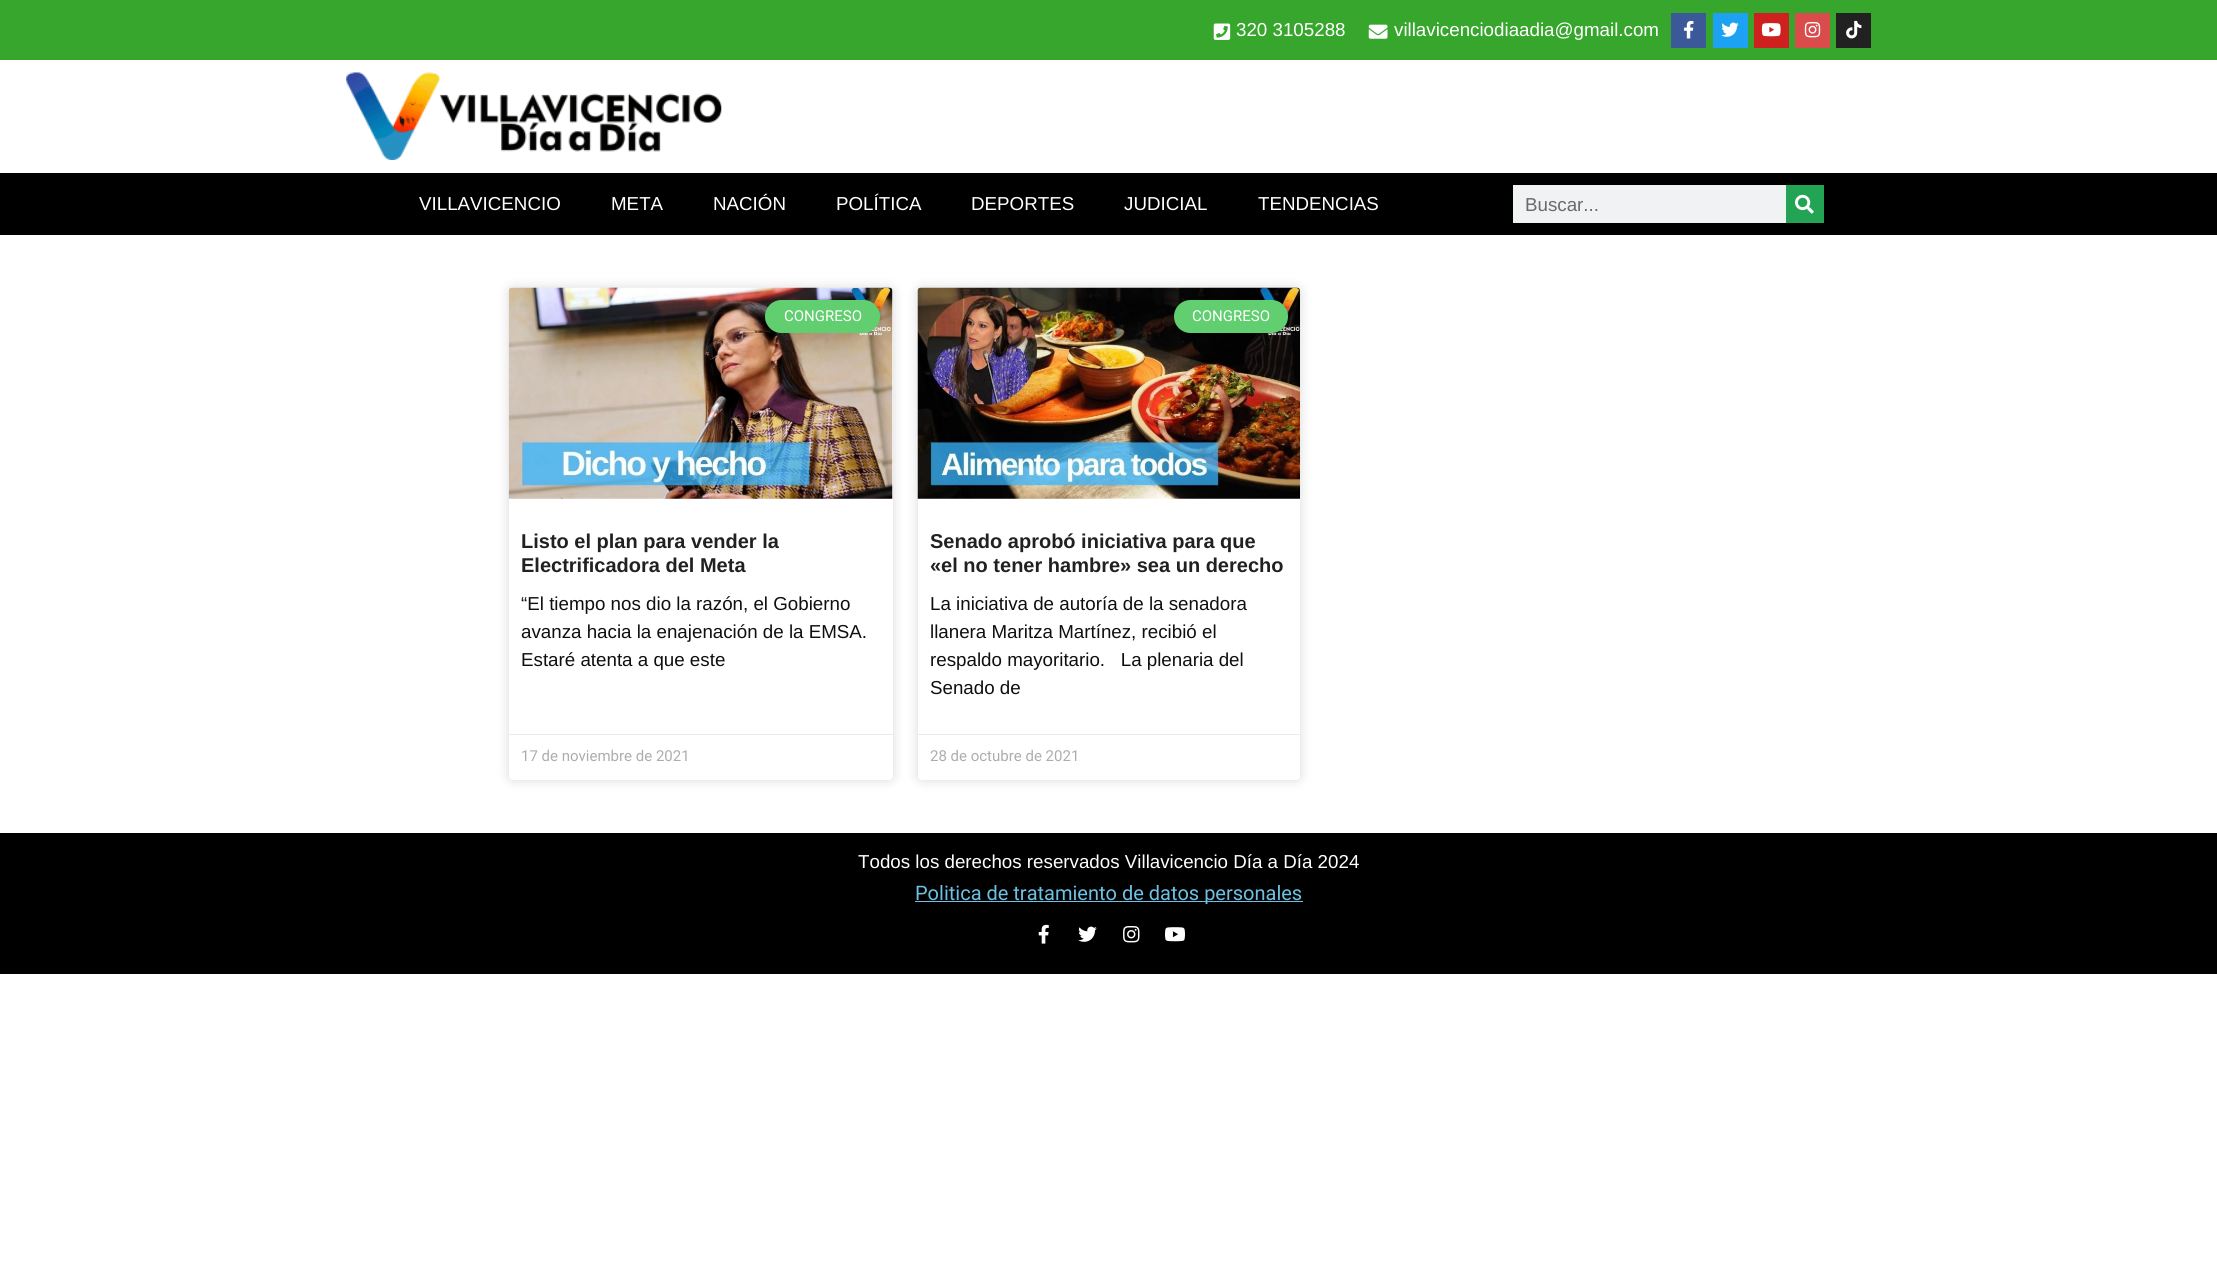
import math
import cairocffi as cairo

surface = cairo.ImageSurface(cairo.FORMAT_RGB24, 2217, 1270)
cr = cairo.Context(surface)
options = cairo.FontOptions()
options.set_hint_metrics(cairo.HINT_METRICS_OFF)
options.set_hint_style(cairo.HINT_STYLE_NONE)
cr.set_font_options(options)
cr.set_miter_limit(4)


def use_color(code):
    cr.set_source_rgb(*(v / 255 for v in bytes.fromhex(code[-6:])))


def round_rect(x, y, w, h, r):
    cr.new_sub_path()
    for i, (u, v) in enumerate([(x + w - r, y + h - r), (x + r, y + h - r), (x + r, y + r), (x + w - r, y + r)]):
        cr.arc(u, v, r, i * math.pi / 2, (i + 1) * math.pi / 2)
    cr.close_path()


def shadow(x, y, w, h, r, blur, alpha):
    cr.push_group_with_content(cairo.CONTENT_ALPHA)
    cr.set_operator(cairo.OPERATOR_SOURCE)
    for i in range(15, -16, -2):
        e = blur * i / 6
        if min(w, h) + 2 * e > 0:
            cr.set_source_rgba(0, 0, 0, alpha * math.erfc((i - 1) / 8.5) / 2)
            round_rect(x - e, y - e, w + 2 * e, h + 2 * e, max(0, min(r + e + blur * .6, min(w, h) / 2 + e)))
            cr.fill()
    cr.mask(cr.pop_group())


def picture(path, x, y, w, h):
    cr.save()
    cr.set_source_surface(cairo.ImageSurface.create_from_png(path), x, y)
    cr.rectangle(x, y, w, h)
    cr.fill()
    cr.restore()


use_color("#ffffff")
cr.paint()
use_color("#37a62d")
cr.rectangle(0, 0, 2217, 60)
cr.fill()
picture("img1.png", 1213, 23, 18, 17)
cr.select_font_face("Liberation Sans")
cr.set_font_size(18.75)
use_color("#ffffff")
cr.move_to(1236, 36)
cr.show_text("320 3105288")
picture("img2.png", 1368, 24, 20, 15)
cr.move_to(1394, 36)
cr.show_text("villavicenciodiaadia@gmail.com")
use_color("#3b5998")
cr.rectangle(1671, 13, 35, 35)
cr.fill()
picture("img3.png", 1684, 20, 10, 19)
use_color("#1da1f2")
cr.rectangle(1713, 13, 35, 35)
cr.fill()
picture("img4.png", 1721, 22, 18, 15)
use_color("#cd201f")
cr.rectangle(1754, 13, 35, 35)
cr.fill()
picture("img5.png", 1761, 23, 20, 14)
use_color("#da4b4b")
cr.rectangle(1795, 13, 35, 35)
cr.fill()
picture("img6.png", 1804, 22, 17, 16)
use_color("#212121")
cr.rectangle(1836, 13, 35, 35)
cr.fill()
picture("img7.png", 1846, 20, 16, 19)
picture("img8.png", 346, 72, 376, 88)
use_color("#000000")
cr.rectangle(0, 173, 2217, 62)
cr.fill()
use_color("#ffffff")
cr.move_to(419, 210)
cr.show_text("VILLAVICENCIO")
cr.move_to(611, 210)
cr.show_text("META")
cr.move_to(713, 210)
cr.show_text("NACIÓN")
cr.move_to(836, 210)
cr.show_text("POLÍTICA")
cr.move_to(971, 210)
cr.show_text("DEPORTES")
cr.move_to(1124, 210)
cr.show_text("JUDICIAL")
cr.move_to(1258, 210)
cr.show_text("TENDENCIAS")
use_color("#f1f2f3")
cr.rectangle(1513, 185, 273, 38)
cr.fill()
use_color("#696a6a")
cr.move_to(1525, 211)
cr.show_text("Buscar...")
use_color("#23a455")
cr.rectangle(1786, 185, 38, 38)
cr.fill()
picture("img9.png", 1795, 194, 19, 20)
use_color("#000000")
shadow(509, 288, 384, 492, 4, 6, 0.15)
use_color("#ffffff")
round_rect(509, 288, 384, 492, 4)
cr.fill()
picture("img10.png", 508, 287, 385, 212)
use_color("#61ce70")
round_rect(765, 300, 115, 33, 16.5)
cr.fill()
cr.select_font_face("Roboto")
cr.set_font_size(15)
use_color("#ffffff")
cr.move_to(784, 321)
cr.show_text("CONGRESO")
cr.select_font_face("Liberation Sans", cairo.FONT_SLANT_NORMAL, cairo.FONT_WEIGHT_BOLD)
cr.set_font_size(20)
use_color("#212121")
cr.move_to(521, 548)
cr.show_text("Listo el plan para vender la")
cr.move_to(521, 572)
cr.show_text("Electrificadora del Meta")
cr.select_font_face("Liberation Sans")
cr.set_font_size(18.75)
use_color("#0f0f0f")
cr.move_to(521, 610)
cr.show_text("“El tiempo nos dio la razón, el Gobierno")
cr.move_to(521, 638)
cr.show_text("avanza hacia la enajenación de la EMSA.")
cr.move_to(521, 666)
cr.show_text("Estaré atenta a que este")
use_color("#eaeaea")
cr.rectangle(509, 734, 384, 1)
cr.fill()
cr.select_font_face("Roboto")
cr.set_font_size(15)
use_color("#adadad")
cr.move_to(521, 761)
cr.show_text("17 de noviembre de 2021")
use_color("#000000")
shadow(918, 288, 382, 492, 4, 6, 0.15)
use_color("#ffffff")
round_rect(918, 288, 382, 492, 4)
cr.fill()
picture("img11.png", 917, 287, 383, 212)
use_color("#61ce70")
round_rect(1174, 300, 114, 33, 16.5)
cr.fill()
use_color("#ffffff")
cr.move_to(1192, 321)
cr.show_text("CONGRESO")
cr.select_font_face("Liberation Sans", cairo.FONT_SLANT_NORMAL, cairo.FONT_WEIGHT_BOLD)
cr.set_font_size(20)
use_color("#212121")
cr.move_to(930, 548)
cr.show_text("Senado aprobó iniciativa para que")
cr.move_to(930, 572)
cr.show_text("«el no tener hambre» sea un derecho")
cr.select_font_face("Liberation Sans")
cr.set_font_size(18.75)
use_color("#0f0f0f")
cr.move_to(930, 610)
cr.show_text("La iniciativa de autoría de la senadora")
cr.move_to(930, 638)
cr.show_text("llanera Maritza Martínez, recibió el")
cr.move_to(930, 666)
cr.show_text("respaldo mayoritario.   La plenaria del")
cr.move_to(930, 694)
cr.show_text("Senado de")
use_color("#eaeaea")
cr.rectangle(918, 734, 382, 1)
cr.fill()
cr.select_font_face("Roboto")
cr.set_font_size(15)
use_color("#adadad")
cr.move_to(930, 761)
cr.show_text("28 de octubre de 2021")
use_color("#000000")
cr.rectangle(0, 833, 2217, 141)
cr.fill()
cr.select_font_face("Liberation Sans")
cr.set_font_size(18.75)
use_color("#ffffff")
cr.move_to(858, 868)
cr.show_text("Todos los derechos reservados Villavicencio Día a Día 2024")
use_color("#6ec1e4")
cr.rectangle(915, 901, 388, 1)
cr.fill()
cr.select_font_face("Roboto")
cr.set_font_size(20)
cr.move_to(915, 900)
cr.show_text("Politica de tratamiento de datos personales")
picture("img12.png", 1038, 924, 11, 20)
picture("img13.png", 1078, 926, 19, 16)
picture("img14.png", 1123, 926, 17, 17)
picture("img15.png", 1165, 927, 20, 15)
surface.write_to_png("result.png")
